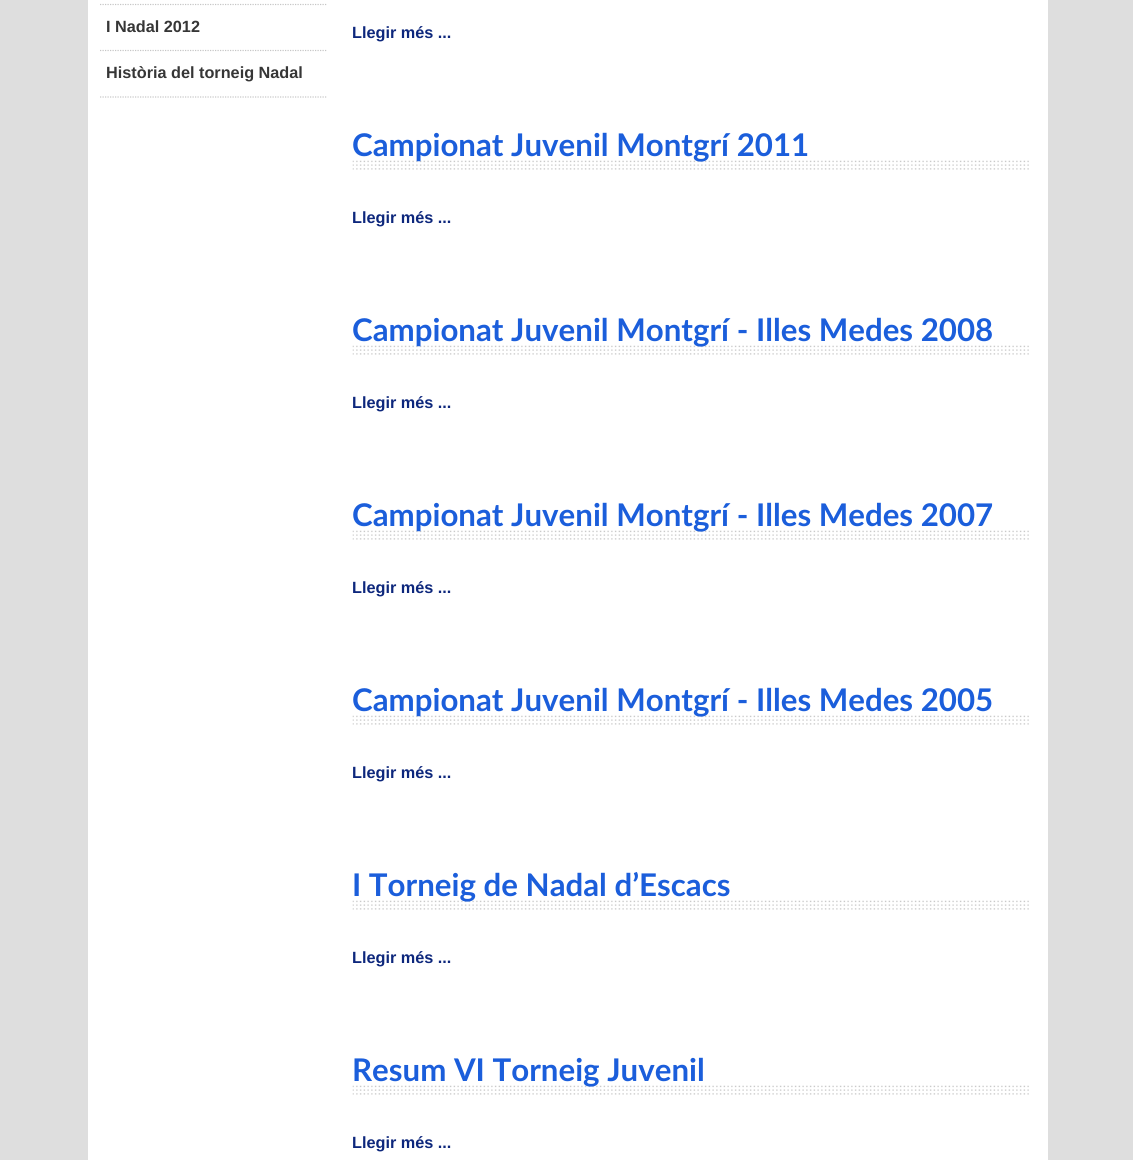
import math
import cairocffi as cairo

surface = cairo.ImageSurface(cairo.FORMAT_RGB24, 1133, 1160)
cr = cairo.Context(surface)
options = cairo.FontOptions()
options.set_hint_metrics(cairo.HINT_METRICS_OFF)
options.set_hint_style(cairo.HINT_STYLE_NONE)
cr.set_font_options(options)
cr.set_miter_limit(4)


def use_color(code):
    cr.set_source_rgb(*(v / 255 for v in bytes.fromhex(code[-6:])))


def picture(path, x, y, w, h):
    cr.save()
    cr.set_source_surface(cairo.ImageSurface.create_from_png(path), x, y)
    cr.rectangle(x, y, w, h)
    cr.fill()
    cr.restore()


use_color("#dedede")
cr.paint()
use_color("#ffffff")
cr.rectangle(88, 0, 960, 1160)
cr.fill()
cr.new_path()
cr.move_to(100, 4.5)
cr.line_to(327.5, 4.5)
use_color("#c6c6c6")
cr.set_line_width(1.2)
cr.set_dash([1.25, 1.25])
cr.stroke()
cr.new_path()
cr.move_to(100, 50.5)
cr.line_to(327.5, 50.5)
cr.stroke()
cr.select_font_face("Liberation Sans", cairo.FONT_SLANT_NORMAL, cairo.FONT_WEIGHT_BOLD)
cr.set_font_size(16.25)
use_color("#363636")
cr.move_to(106, 32)
cr.show_text("I Nadal 2012")
cr.new_path()
cr.move_to(100, 97)
cr.line_to(327.5, 97)
use_color("#c6c6c6")
cr.stroke()
use_color("#363636")
cr.move_to(106, 78)
cr.show_text("Història del torneig Nadal")
use_color("#0d277c")
cr.move_to(352, 38)
cr.show_text("Llegir més ...")
picture("img1.png", 352, 160, 677, 10)
cr.select_font_face("Lato", cairo.FONT_SLANT_NORMAL, cairo.FONT_WEIGHT_BOLD)
cr.set_font_size(31.25)
use_color("#1b5edb")
cr.move_to(352, 156)
cr.show_text("Campionat Juvenil Montgrí 2011")
cr.select_font_face("Liberation Sans", cairo.FONT_SLANT_NORMAL, cairo.FONT_WEIGHT_BOLD)
cr.set_font_size(16.25)
use_color("#0d277c")
cr.move_to(352, 223)
cr.show_text("Llegir més ...")
picture("img1.png", 352, 345, 677, 10)
cr.select_font_face("Lato", cairo.FONT_SLANT_NORMAL, cairo.FONT_WEIGHT_BOLD)
cr.set_font_size(31.25)
use_color("#1b5edb")
cr.move_to(352, 341)
cr.show_text("Campionat Juvenil Montgrí - Illes Medes 2008")
cr.select_font_face("Liberation Sans", cairo.FONT_SLANT_NORMAL, cairo.FONT_WEIGHT_BOLD)
cr.set_font_size(16.25)
use_color("#0d277c")
cr.move_to(352, 408)
cr.show_text("Llegir més ...")
picture("img1.png", 352, 530, 677, 10)
cr.select_font_face("Lato", cairo.FONT_SLANT_NORMAL, cairo.FONT_WEIGHT_BOLD)
cr.set_font_size(31.25)
use_color("#1b5edb")
cr.move_to(352, 526)
cr.show_text("Campionat Juvenil Montgrí - Illes Medes 2007")
cr.select_font_face("Liberation Sans", cairo.FONT_SLANT_NORMAL, cairo.FONT_WEIGHT_BOLD)
cr.set_font_size(16.25)
use_color("#0d277c")
cr.move_to(352, 593)
cr.show_text("Llegir més ...")
picture("img1.png", 352, 715, 677, 10)
cr.select_font_face("Lato", cairo.FONT_SLANT_NORMAL, cairo.FONT_WEIGHT_BOLD)
cr.set_font_size(31.25)
use_color("#1b5edb")
cr.move_to(352, 711)
cr.show_text("Campionat Juvenil Montgrí - Illes Medes 2005")
cr.select_font_face("Liberation Sans", cairo.FONT_SLANT_NORMAL, cairo.FONT_WEIGHT_BOLD)
cr.set_font_size(16.25)
use_color("#0d277c")
cr.move_to(352, 778)
cr.show_text("Llegir més ...")
picture("img1.png", 352, 900, 677, 10)
cr.select_font_face("Lato", cairo.FONT_SLANT_NORMAL, cairo.FONT_WEIGHT_BOLD)
cr.set_font_size(31.25)
use_color("#1b5edb")
cr.move_to(352, 896)
cr.show_text("I Torneig de Nadal d’Escacs")
cr.select_font_face("Liberation Sans", cairo.FONT_SLANT_NORMAL, cairo.FONT_WEIGHT_BOLD)
cr.set_font_size(16.25)
use_color("#0d277c")
cr.move_to(352, 963)
cr.show_text("Llegir més ...")
picture("img1.png", 352, 1085, 677, 10)
cr.select_font_face("Lato", cairo.FONT_SLANT_NORMAL, cairo.FONT_WEIGHT_BOLD)
cr.set_font_size(31.25)
use_color("#1b5edb")
cr.move_to(352, 1081)
cr.show_text("Resum VI Torneig Juvenil")
cr.select_font_face("Liberation Sans", cairo.FONT_SLANT_NORMAL, cairo.FONT_WEIGHT_BOLD)
cr.set_font_size(16.25)
use_color("#0d277c")
cr.move_to(352, 1148)
cr.show_text("Llegir més ...")
surface.write_to_png("result.png")
